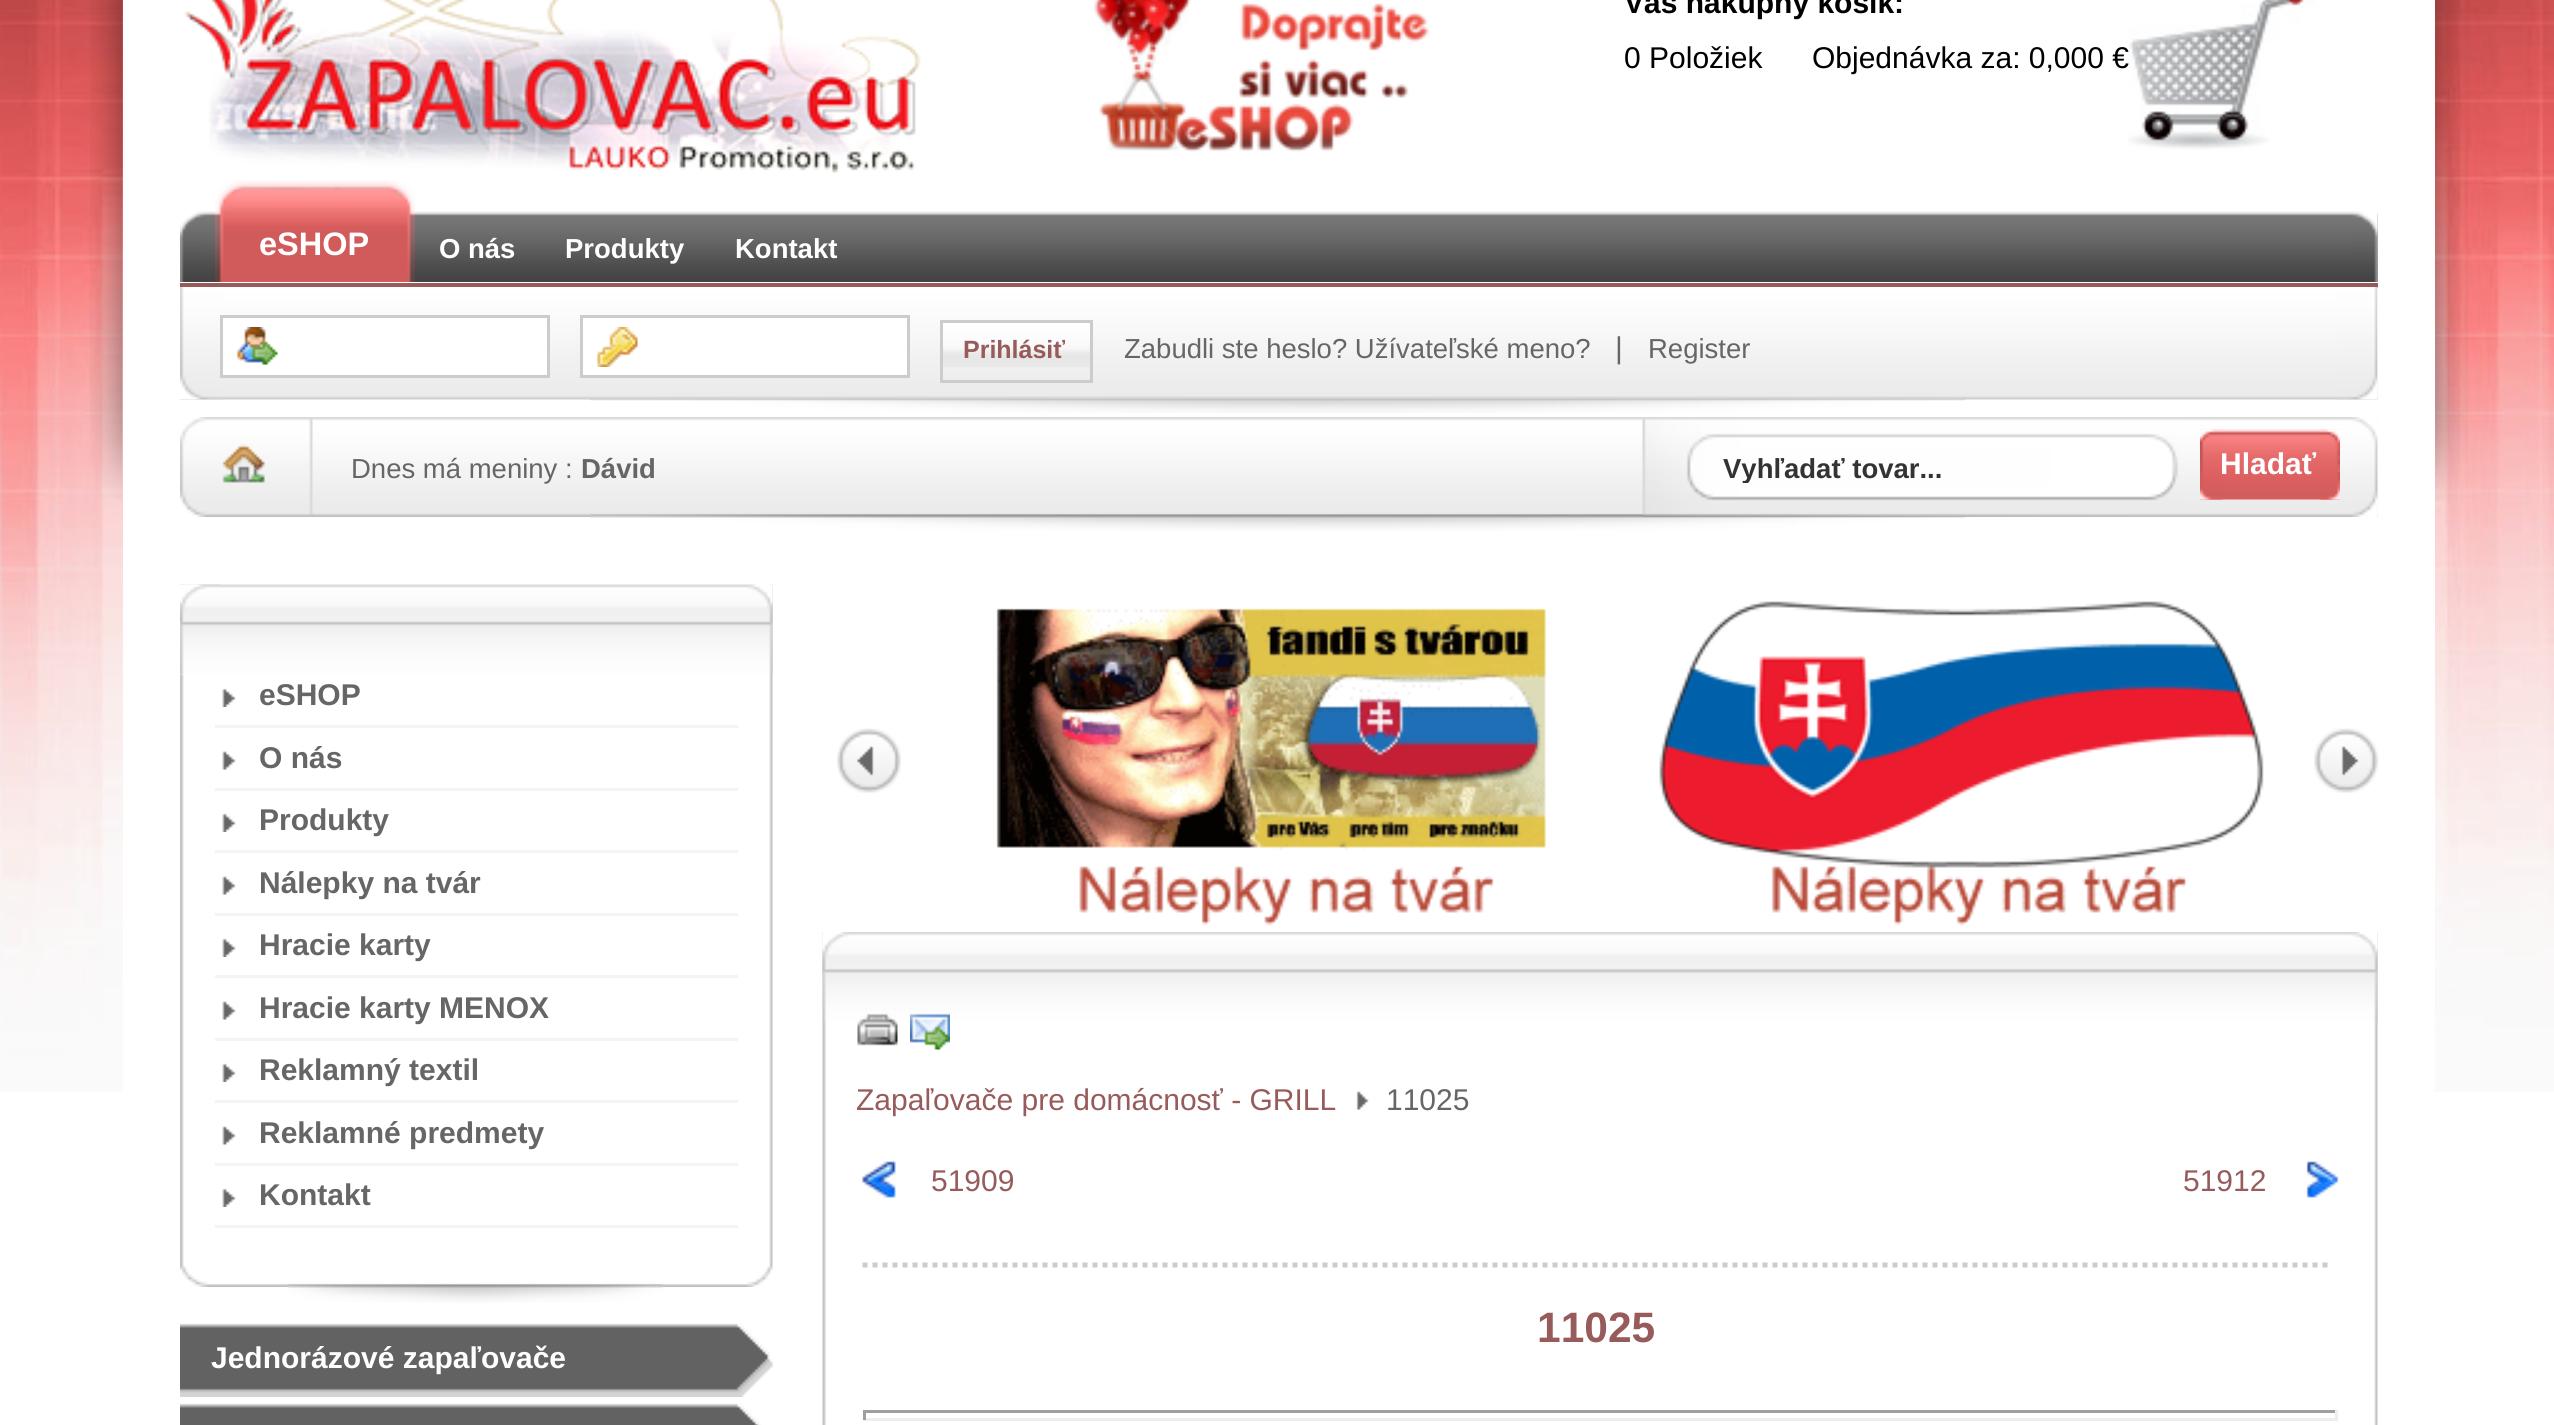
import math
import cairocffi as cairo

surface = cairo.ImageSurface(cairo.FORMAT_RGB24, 2554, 1425)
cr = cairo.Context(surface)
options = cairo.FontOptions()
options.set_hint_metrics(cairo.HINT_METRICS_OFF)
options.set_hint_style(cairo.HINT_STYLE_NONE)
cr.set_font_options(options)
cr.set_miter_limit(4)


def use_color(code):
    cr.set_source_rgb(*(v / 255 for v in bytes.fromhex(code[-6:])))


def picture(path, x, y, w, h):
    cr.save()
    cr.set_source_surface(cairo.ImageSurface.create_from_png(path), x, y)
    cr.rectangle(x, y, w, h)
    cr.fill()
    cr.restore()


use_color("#ffffff")
cr.paint()
picture("img1.png", 0, 0, 2554, 1092)
picture("img2.png", 90, 0, 33, 501)
use_color("#ffffff")
cr.rectangle(123, 0, 2312, 1092)
cr.fill()
picture("img3.png", 184, 0, 1246, 173)
picture("img4.png", 2128, 0, 187, 150)
cr.select_font_face("Liberation Sans", cairo.FONT_SLANT_NORMAL, cairo.FONT_WEIGHT_BOLD)
cr.set_font_size(30)
use_color("#000000")
cr.move_to(1624, 13)
cr.show_text("Váš nákupný košík:")
cr.select_font_face("Liberation Sans")
cr.move_to(1624, 68)
cr.show_text("0 Položiek")
cr.move_to(1812, 68)
cr.show_text("Objednávka za: 0,000 €")
picture("img5.png", 206, 211, 2172, 71)
use_color("#975b5b")
cr.rectangle(180, 283, 2198, 5)
cr.fill()
picture("img6.png", 180, 211, 26, 71)
picture("img7.png", 242, 180, 173, 102)
picture("img8.png", 215, 180, 27, 102)
cr.select_font_face("Liberation Sans", cairo.FONT_SLANT_NORMAL, cairo.FONT_WEIGHT_BOLD)
cr.set_font_size(32.5)
use_color("#ffffff")
cr.move_to(259, 255)
cr.show_text("eSHOP")
cr.set_font_size(27.5)
cr.move_to(439, 258)
cr.show_text("O nás")
cr.move_to(565, 258)
cr.show_text("Produkty")
cr.move_to(735, 258)
cr.show_text("Kontakt")
picture("img9.png", 2352, 211, 26, 71)
picture("img16.png", 590, 399, 1375, 14)
picture("img10.png", 180, 287, 2198, 113)
picture("img11.png", 180, 287, 42, 113)
picture("img12.png", 2338, 287, 40, 113)
cr.rectangle(223, 318, 324, 57)
cr.fill()
picture("img13.png", 236, 327, 42, 38)
cr.rectangle(221.5, 316.5, 327, 60)
use_color("#cccccc")
cr.set_line_width(3)
cr.stroke()
use_color("#ffffff")
cr.rectangle(583, 318, 324, 57)
cr.fill()
picture("img14.png", 596, 327, 42, 40)
cr.rectangle(581.5, 316.5, 327, 60)
use_color("#cccccc")
cr.stroke()
picture("img15.png", 943, 323, 147, 44)
cr.rectangle(941.5, 321.5, 150, 60)
cr.stroke()
cr.set_font_size(25)
use_color("#975b5b")
cr.move_to(963, 358)
cr.show_text("Prihlásiť")
cr.select_font_face("Liberation Sans")
cr.set_font_size(27.5)
use_color("#666666")
cr.move_to(1124, 358)
cr.show_text("Zabudli ste heslo? Užívateľské meno?")
cr.set_font_size(30)
cr.move_to(1615, 358)
cr.show_text("|")
cr.set_font_size(27.5)
cr.move_to(1648, 358)
cr.show_text("Register")
picture("img17.png", 312, 417, 2066, 100)
picture("img18.png", 180, 417, 7, 100)
picture("img19.png", 2352, 417, 26, 100)
picture("img20.png", 187, 417, 126, 100)
cr.move_to(351, 478)
cr.show_text("Dnes má meniny :")
cr.select_font_face("Liberation Sans", cairo.FONT_SLANT_NORMAL, cairo.FONT_WEIGHT_BOLD)
cr.move_to(581, 478)
cr.show_text("Dávid")
picture("img25.png", 590, 514, 1375, 17)
picture("img21.png", 1642, 419, 537, 98)
cr.save()
cr.rectangle(1723, 453, 425, 30)
cr.clip()
use_color("#333333")
cr.move_to(1723, 478)
cr.show_text("Vyhľadať tovar...")
cr.restore()
picture("img22.png", 2200, 429, 140, 71)
picture("img23.png", 2200, 429, 23, 71)
picture("img24.png", 2320, 429, 20, 71)
cr.set_font_size(30)
use_color("#ffffff")
cr.move_to(2220, 474)
cr.show_text("Hladať")
picture("img26.png", 180, 584, 593, 703)
picture("img27.png", 180, 584, 28, 703)
picture("img28.png", 180, 584, 593, 91)
picture("img29.png", 180, 584, 40, 91)
picture("img30.png", 222, 688, 14, 19)
use_color("#f5f4f4")
cr.rectangle(215, 725, 523, 3)
cr.fill()
use_color("#666666")
cr.move_to(259, 705)
cr.show_text("eSHOP")
picture("img31.png", 222, 751, 14, 19)
use_color("#f5f4f4")
cr.rectangle(215, 788, 523, 3)
cr.fill()
use_color("#666666")
cr.move_to(259, 768)
cr.show_text("O nás")
picture("img30.png", 222, 813, 14, 19)
use_color("#f5f4f4")
cr.rectangle(215, 850, 523, 3)
cr.fill()
use_color("#666666")
cr.move_to(259, 830)
cr.show_text("Produkty")
picture("img31.png", 222, 876, 14, 19)
use_color("#f5f4f4")
cr.rectangle(215, 913, 523, 3)
cr.fill()
use_color("#666666")
cr.move_to(259, 893)
cr.show_text("Nálepky na tvár")
picture("img30.png", 222, 938, 14, 19)
use_color("#f5f4f4")
cr.rectangle(215, 975, 523, 3)
cr.fill()
use_color("#666666")
cr.move_to(259, 955)
cr.show_text("Hracie karty")
picture("img32.png", 222, 1001, 14, 19)
use_color("#f5f4f4")
cr.rectangle(215, 1038, 523, 3)
cr.fill()
use_color("#666666")
cr.move_to(259, 1018)
cr.show_text("Hracie karty MENOX")
picture("img30.png", 222, 1063, 14, 19)
use_color("#f5f4f4")
cr.rectangle(215, 1100, 523, 3)
cr.fill()
use_color("#666666")
cr.move_to(259, 1080)
cr.show_text("Reklamný textil")
picture("img31.png", 222, 1126, 14, 19)
use_color("#f5f4f4")
cr.rectangle(215, 1163, 523, 3)
cr.fill()
use_color("#666666")
cr.move_to(259, 1143)
cr.show_text("Reklamné predmety")
picture("img30.png", 222, 1188, 14, 19)
use_color("#f5f4f4")
cr.rectangle(215, 1225, 523, 3)
cr.fill()
use_color("#666666")
cr.move_to(259, 1205)
cr.show_text("Kontakt")
picture("img33.png", 287, 1284, 376, 19)
picture("img34.png", 180, 1323, 593, 74)
use_color("#ffffff")
cr.move_to(211, 1368)
cr.show_text("Jednorázové zapaľovače")
picture("img35.png", 180, 1403, 582, 22)
picture("img36.png", 837, 728, 64, 65)
picture("img37.png", 996, 608, 550, 318)
picture("img38.png", 1659, 601, 605, 325)
picture("img39.png", 2314, 728, 65, 65)
picture("img40.png", 2374, 932, 4, 493)
picture("img41.png", 822, 932, 4, 493)
picture("img42.png", 822, 932, 1556, 90)
picture("img43.png", 822, 932, 27, 90)
picture("img44.png", 857, 1013, 41, 33)
picture("img45.png", 910, 1013, 40, 37)
cr.select_font_face("Liberation Sans")
use_color("#975b5b")
cr.move_to(856, 1110)
cr.show_text("Zapaľovače pre domácnosť - GRILL")
picture("img46.png", 1356, 1091, 13, 19)
use_color("#666666")
cr.move_to(1386, 1110)
cr.show_text("11025")
picture("img47.png", 862, 1161, 34, 37)
use_color("#975b5b")
cr.move_to(931, 1191)
cr.show_text("51909")
picture("img48.png", 2306, 1161, 33, 37)
cr.move_to(2183, 1191)
cr.show_text("51912")
cr.new_path()
cr.move_to(862.5, 1265)
cr.line_to(2332.5, 1265)
use_color("#cccccc")
cr.set_line_width(5)
cr.set_dash([5, 5])
cr.stroke()
cr.select_font_face("Liberation Sans", cairo.FONT_SLANT_NORMAL, cairo.FONT_WEIGHT_BOLD)
cr.set_font_size(42.5)
use_color("#975b5b")
cr.move_to(1537, 1342)
cr.show_text("11025")
use_color("#9f9f9f")
cr.rectangle(863, 1410, 1475, 3)
cr.fill()
use_color("#eeeeee")
cr.rectangle(2335, 1410, 3, 10)
cr.fill()
cr.rectangle(863, 1418, 1475, 3)
cr.fill()
use_color("#9f9f9f")
cr.rectangle(863, 1410, 3, 10)
cr.fill()
picture("img49.png", 2435, 0, 33, 501)
surface.write_to_png("result.png")
